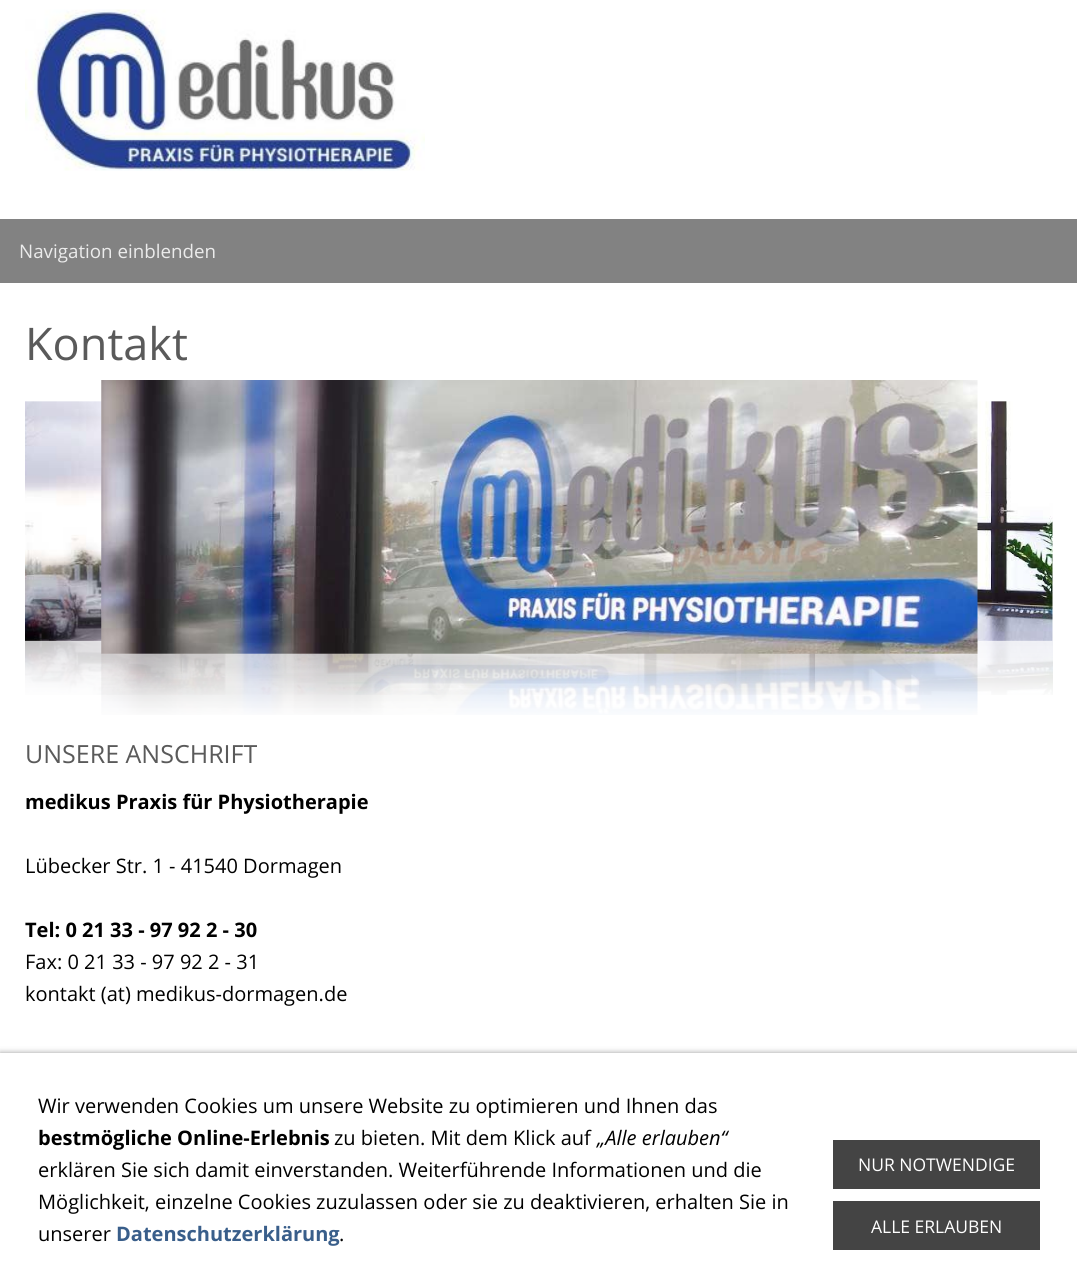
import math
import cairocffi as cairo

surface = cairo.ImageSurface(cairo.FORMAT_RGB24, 1077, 1287)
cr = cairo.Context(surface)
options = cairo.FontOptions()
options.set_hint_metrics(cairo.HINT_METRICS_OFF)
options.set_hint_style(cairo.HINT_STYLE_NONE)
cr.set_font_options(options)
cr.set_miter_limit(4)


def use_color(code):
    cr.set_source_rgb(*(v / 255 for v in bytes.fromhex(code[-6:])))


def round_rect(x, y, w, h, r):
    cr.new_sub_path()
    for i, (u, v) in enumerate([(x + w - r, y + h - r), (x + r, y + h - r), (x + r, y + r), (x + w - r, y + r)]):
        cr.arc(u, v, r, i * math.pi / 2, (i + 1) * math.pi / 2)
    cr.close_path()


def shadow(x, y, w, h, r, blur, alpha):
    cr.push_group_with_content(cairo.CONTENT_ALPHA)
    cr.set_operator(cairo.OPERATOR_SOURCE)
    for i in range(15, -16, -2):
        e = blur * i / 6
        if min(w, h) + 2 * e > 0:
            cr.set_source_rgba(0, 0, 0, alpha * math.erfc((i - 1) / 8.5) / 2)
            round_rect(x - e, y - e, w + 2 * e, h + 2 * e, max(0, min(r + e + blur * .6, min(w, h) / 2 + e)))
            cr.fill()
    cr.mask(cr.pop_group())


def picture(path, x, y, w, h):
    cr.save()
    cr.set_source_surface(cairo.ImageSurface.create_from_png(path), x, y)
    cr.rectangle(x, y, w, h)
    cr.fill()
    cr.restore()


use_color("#ffffff")
cr.paint()
picture("img1.png", 25, 9, 400, 162)
use_color("#828282")
cr.rectangle(0, 219, 1077, 64)
cr.fill()
cr.select_font_face("Open Sans")
cr.set_font_size(18.75)
use_color("#ebebeb")
cr.move_to(19, 258)
cr.show_text("Navigation einblenden")
cr.set_font_size(45)
use_color("#5a5a5a")
cr.move_to(25, 360)
cr.show_text("Kontakt")
picture("img4.png", 25, 401, 77, 240)
picture("img5.png", 25, 640, 790, 55)
picture("img6.png", 977, 401, 76, 240)
picture("img7.png", 327, 641, 726, 54)
picture("img2.png", 101, 380, 877, 274)
picture("img3.png", 101, 653, 877, 62)
cr.set_font_size(25)
cr.move_to(25, 763)
cr.show_text("UNSERE ANSCHRIFT")
cr.select_font_face("Open Sans", cairo.FONT_SLANT_NORMAL, cairo.FONT_WEIGHT_BOLD)
cr.set_font_size(20)
use_color("#000000")
cr.move_to(25, 809)
cr.show_text("medikus Praxis für Physiotherapie")
cr.select_font_face("Open Sans")
cr.move_to(25, 873)
cr.show_text("Lübecker Str. 1 - 41540 Dormagen")
cr.select_font_face("Open Sans", cairo.FONT_SLANT_NORMAL, cairo.FONT_WEIGHT_BOLD)
cr.move_to(25, 937)
cr.show_text("Tel: 0 21 33 - 97 92 2 - 30")
cr.select_font_face("Open Sans")
cr.move_to(25, 969)
cr.show_text("Fax: 0 21 33 - 97 92 2 - 31")
cr.move_to(25, 1001)
cr.show_text("kontakt (at) medikus-dormagen.de")
use_color("#000000")
shadow(0, 1053, 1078, 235, 0, 3, 0.4)
use_color("#ffffff")
cr.rectangle(0, 1053, 1077, 234)
cr.fill()
use_color("#000000")
cr.move_to(38, 1113)
cr.show_text("Wir verwenden Cookies um unsere Website zu optimieren und Ihnen das")
cr.select_font_face("Open Sans", cairo.FONT_SLANT_NORMAL, cairo.FONT_WEIGHT_BOLD)
cr.move_to(38, 1145)
cr.show_text("bestmögliche Online-Erlebnis")
cr.select_font_face("Open Sans")
cr.move_to(334, 1145)
cr.show_text("zu bieten. Mit dem Klick auf")
cr.select_font_face("Open Sans", cairo.FONT_SLANT_ITALIC)
cr.move_to(597, 1145)
cr.show_text("„Alle erlauben“")
cr.select_font_face("Open Sans")
cr.move_to(38, 1177)
cr.show_text("erklären Sie sich damit einverstanden. Weiterführende Informationen und die")
cr.move_to(38, 1209)
cr.show_text("Möglichkeit, einzelne Cookies zuzulassen oder sie zu deaktivieren, erhalten Sie in")
cr.move_to(38, 1241)
cr.show_text("unserer")
cr.select_font_face("Open Sans", cairo.FONT_SLANT_NORMAL, cairo.FONT_WEIGHT_BOLD)
use_color("#395e8a")
cr.move_to(116, 1241)
cr.show_text("Datenschutzerklärung")
cr.select_font_face("Open Sans")
use_color("#000000")
cr.move_to(339, 1241)
cr.show_text(".")
use_color("#444444")
cr.rectangle(833, 1140, 207, 49)
cr.fill()
cr.set_font_size(17.5)
use_color("#ffffff")
cr.move_to(858, 1171)
cr.show_text("NUR NOTWENDIGE")
use_color("#444444")
cr.rectangle(833, 1201, 207, 49)
cr.fill()
use_color("#ffffff")
cr.move_to(871, 1233)
cr.show_text("ALLE ERLAUBEN")
surface.write_to_png("result.png")
